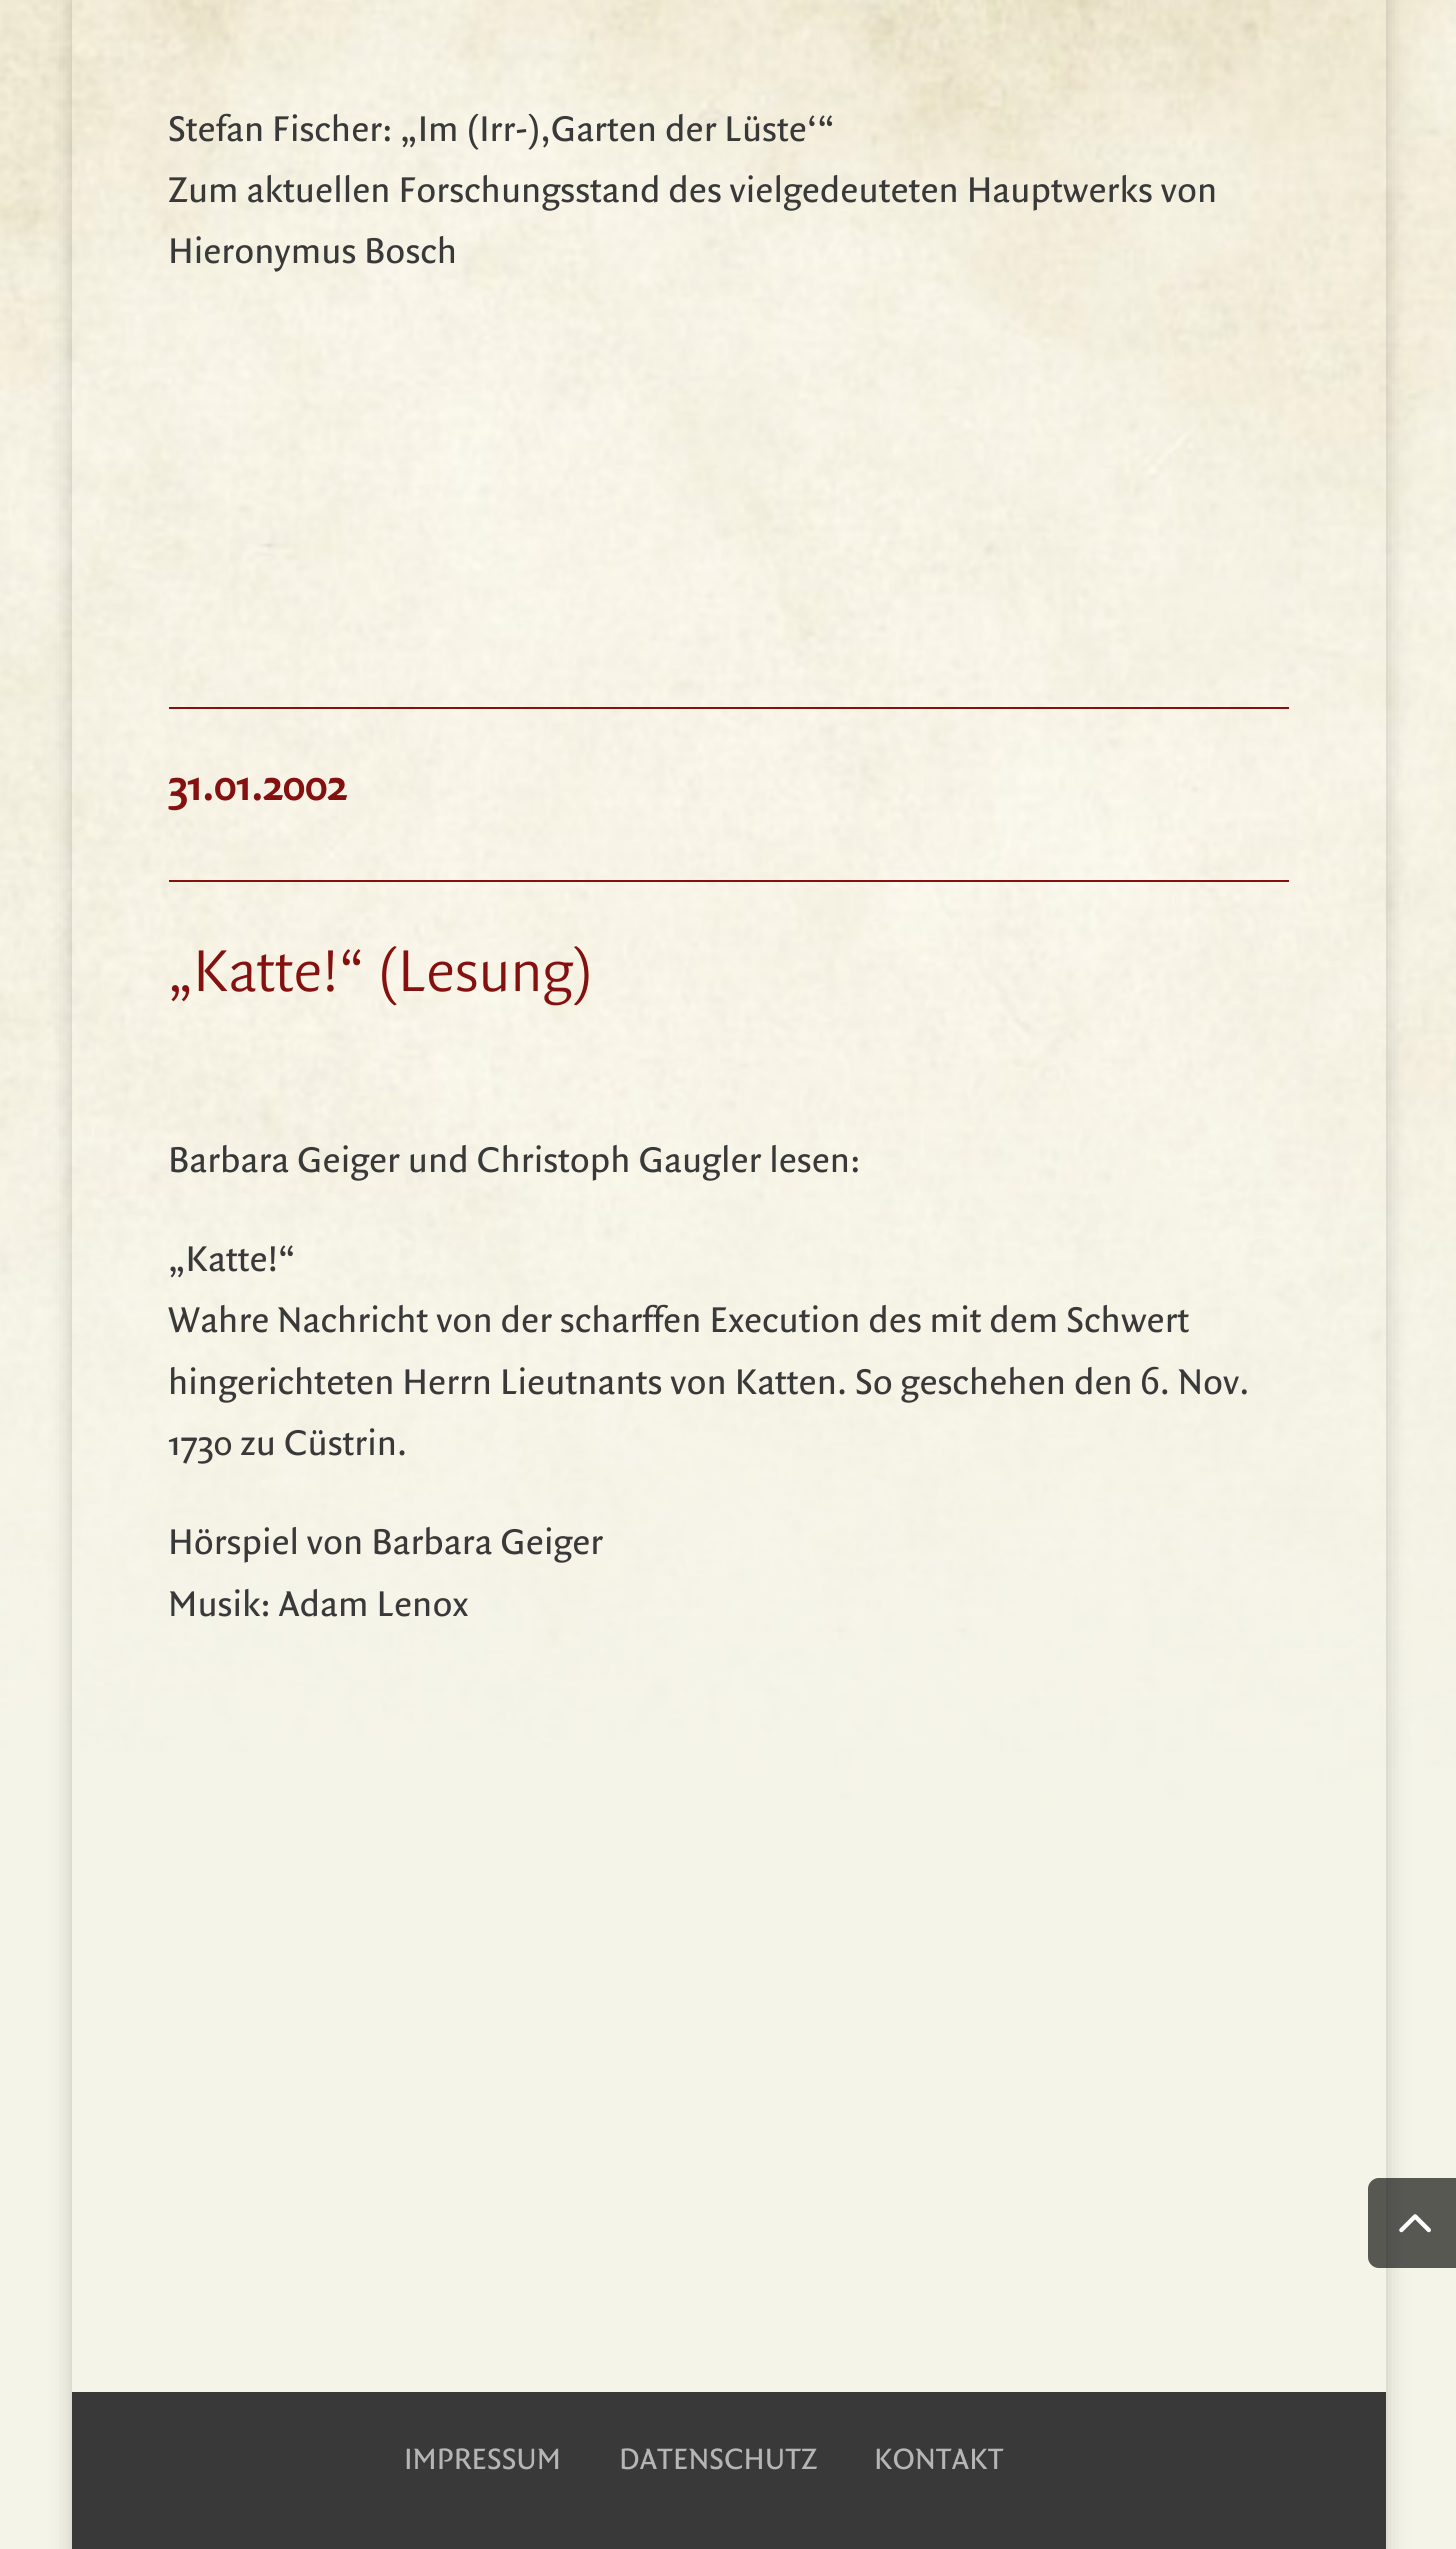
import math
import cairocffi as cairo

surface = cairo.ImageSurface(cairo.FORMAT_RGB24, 1456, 2549)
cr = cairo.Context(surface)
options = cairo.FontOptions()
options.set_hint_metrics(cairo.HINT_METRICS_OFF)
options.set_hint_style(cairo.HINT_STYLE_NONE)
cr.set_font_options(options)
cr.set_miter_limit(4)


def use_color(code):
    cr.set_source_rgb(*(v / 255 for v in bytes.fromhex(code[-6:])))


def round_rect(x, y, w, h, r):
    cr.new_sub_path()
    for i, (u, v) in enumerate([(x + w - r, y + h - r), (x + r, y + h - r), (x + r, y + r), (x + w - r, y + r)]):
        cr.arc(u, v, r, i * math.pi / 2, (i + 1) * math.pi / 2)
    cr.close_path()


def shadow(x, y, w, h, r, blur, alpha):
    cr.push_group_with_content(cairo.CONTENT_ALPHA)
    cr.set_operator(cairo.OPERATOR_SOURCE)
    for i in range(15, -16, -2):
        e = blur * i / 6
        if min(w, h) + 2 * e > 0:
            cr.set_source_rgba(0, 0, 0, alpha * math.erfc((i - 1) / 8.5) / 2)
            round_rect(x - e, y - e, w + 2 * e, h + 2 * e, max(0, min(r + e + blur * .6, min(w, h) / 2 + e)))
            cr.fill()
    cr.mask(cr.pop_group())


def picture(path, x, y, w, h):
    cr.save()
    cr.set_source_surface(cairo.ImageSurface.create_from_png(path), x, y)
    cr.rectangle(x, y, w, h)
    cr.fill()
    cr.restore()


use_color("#ffffff")
cr.paint()
picture("img1.png", 0, 0, 1456, 2549)
cr.save()
cr.set_fill_rule(cairo.FILL_RULE_EVEN_ODD)
cr.new_path()
cr.move_to(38, 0)
cr.line_to(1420, 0)
cr.line_to(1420, 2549)
cr.line_to(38, 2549)
cr.close_path()
cr.move_to(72, -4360)
cr.line_to(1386, -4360)
cr.line_to(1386, 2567)
cr.line_to(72, 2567)
cr.close_path()
cr.clip()
use_color("#000000")
shadow(72, -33, 1314, 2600, 0, 11, 0.2)
cr.restore()
cr.select_font_face("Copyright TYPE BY")
cr.set_font_size(38.25)
use_color("#393939")
cr.move_to(168, 141)
cr.show_text("Stefan Fischer: „Im (Irr-),Garten der Lüste‘“")
cr.move_to(168, 202)
cr.show_text("Zum aktuellen Forschungsstand des vielgedeuteten Hauptwerks von")
cr.move_to(168, 263)
cr.show_text("Hieronymus Bosch")
use_color("#841010")
cr.rectangle(169, 707, 1120, 2)
cr.fill()
cr.select_font_face("Copyright TYPE BY", cairo.FONT_SLANT_NORMAL, cairo.FONT_WEIGHT_BOLD)
cr.set_font_size(45)
cr.move_to(168, 800)
cr.show_text("31.01.2002")
cr.rectangle(169, 880, 1120, 2)
cr.fill()
cr.select_font_face("Copyright TYPE BY Light")
cr.set_font_size(63)
cr.move_to(168, 991)
cr.show_text("„Katte!“ (Lesung)")
cr.select_font_face("Copyright TYPE BY")
cr.set_font_size(38.25)
use_color("#393939")
cr.move_to(168, 1172)
cr.show_text("Barbara Geiger und Christoph Gaugler lesen:")
cr.move_to(168, 1271)
cr.show_text("„Katte!“")
cr.move_to(168, 1332)
cr.show_text("Wahre Nachricht von der scharffen Execution des mit dem Schwert")
cr.move_to(168, 1394)
cr.show_text("hingerichteten Herrn Lieutnants von Katten. So geschehen den 6. Nov.")
cr.move_to(168, 1455)
cr.show_text("1730 zu Cüstrin.")
cr.move_to(168, 1554)
cr.show_text("Hörspiel von Barbara Geiger")
cr.move_to(168, 1616)
cr.show_text("Musik: Adam Lenox")
cr.set_source_rgba(0, 0, 0, 0.4)
cr.new_path()
cr.move_to(1379, 2178)
cr.line_to(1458, 2178)
cr.line_to(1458, 2268)
cr.line_to(1379, 2268)
cr.curve_to(1373, 2268, 1368, 2263, 1368, 2257)
cr.line_to(1368, 2189)
cr.curve_to(1368, 2183, 1373, 2178, 1379, 2178)
cr.close_path()
cr.fill()
picture("img2.png", 1399, 2214, 32, 19)
use_color("#393939")
cr.rectangle(72, 2392, 1314, 157)
cr.fill()
cr.set_font_size(31.5)
use_color("#b5b5b5")
cr.move_to(404, 2469)
cr.show_text("IMPRESSUM")
cr.move_to(619, 2469)
cr.show_text("DATENSCHUTZ")
cr.move_to(874, 2469)
cr.show_text("KONTAKT")
cr.set_source_rgba(0, 0, 0, 0.4)
cr.new_path()
cr.move_to(1379, 2178)
cr.line_to(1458, 2178)
cr.line_to(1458, 2268)
cr.line_to(1379, 2268)
cr.curve_to(1373, 2268, 1368, 2263, 1368, 2257)
cr.line_to(1368, 2189)
cr.curve_to(1368, 2183, 1373, 2178, 1379, 2178)
cr.close_path()
cr.fill()
picture("img3.png", 1399, 2214, 32, 19)
surface.write_to_png("result.png")
